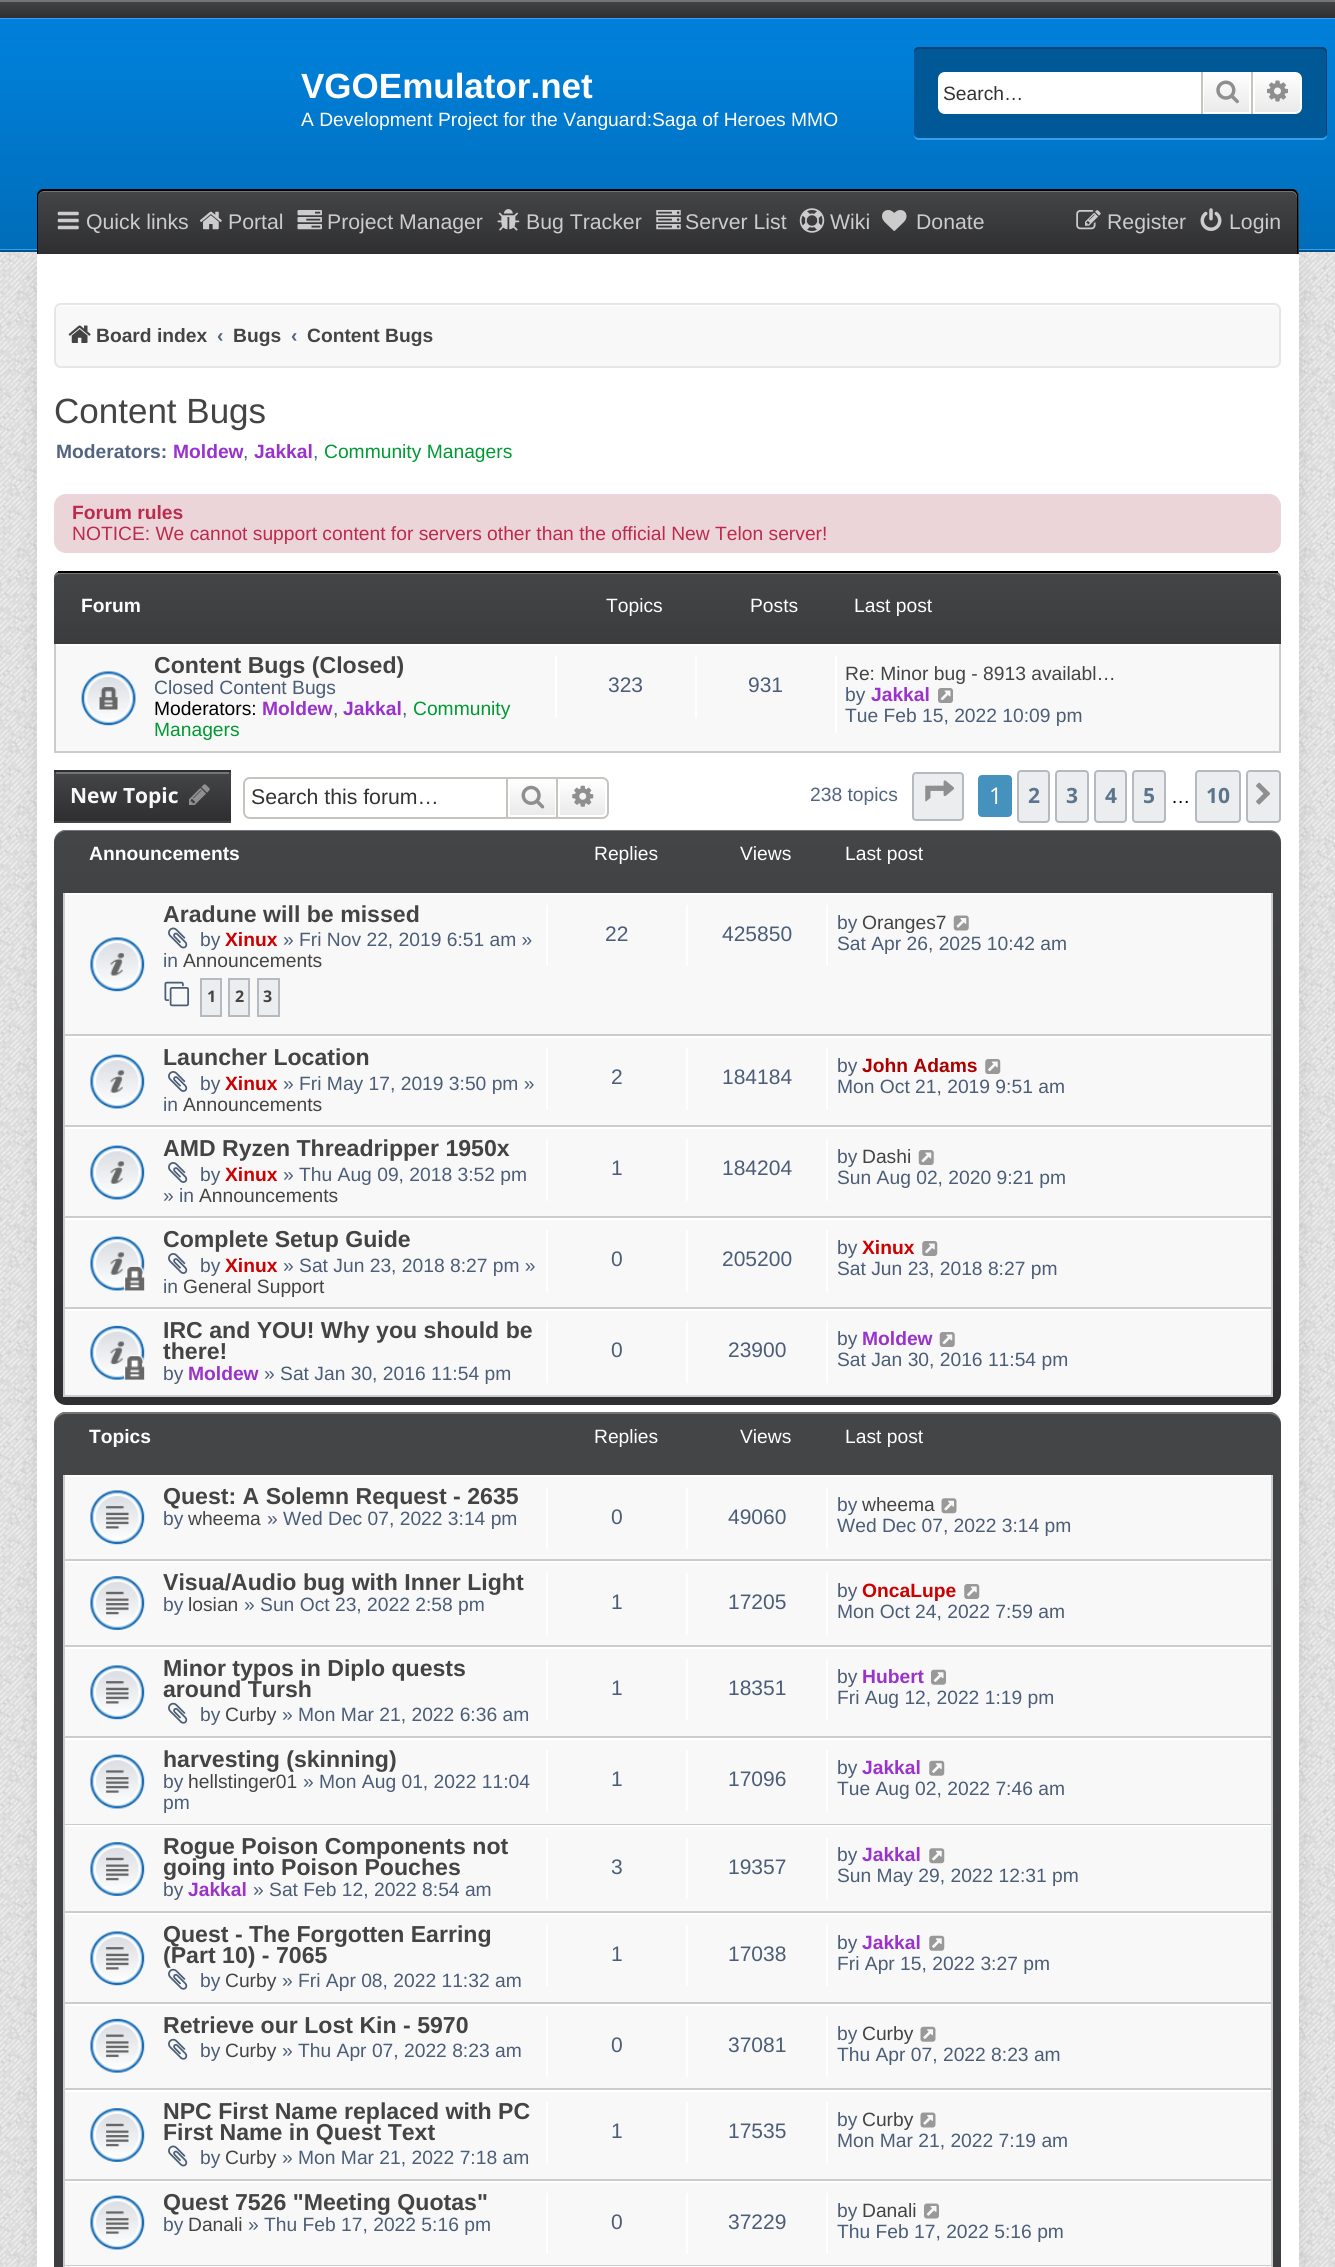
import math
import cairocffi as cairo

surface = cairo.ImageSurface(cairo.FORMAT_RGB24, 1335, 2267)
cr = cairo.Context(surface)
options = cairo.FontOptions()
options.set_hint_metrics(cairo.HINT_METRICS_OFF)
options.set_hint_style(cairo.HINT_STYLE_NONE)
cr.set_font_options(options)
cr.set_miter_limit(4)


def use_color(code):
    cr.set_source_rgb(*(v / 255 for v in bytes.fromhex(code[-6:])))


def round_rect(x, y, w, h, r):
    cr.new_sub_path()
    for i, (u, v) in enumerate([(x + w - r, y + h - r), (x + r, y + h - r), (x + r, y + r), (x + w - r, y + r)]):
        cr.arc(u, v, r, i * math.pi / 2, (i + 1) * math.pi / 2)
    cr.close_path()


def shadow(x, y, w, h, r, blur, alpha):
    cr.push_group_with_content(cairo.CONTENT_ALPHA)
    cr.set_operator(cairo.OPERATOR_SOURCE)
    for i in range(15, -16, -2):
        e = blur * i / 6
        if min(w, h) + 2 * e > 0:
            cr.set_source_rgba(0, 0, 0, alpha * math.erfc((i - 1) / 8.5) / 2)
            round_rect(x - e, y - e, w + 2 * e, h + 2 * e, max(0, min(r + e + blur * .6, min(w, h) / 2 + e)))
            cr.fill()
    cr.mask(cr.pop_group())


def picture(path, x, y, w, h):
    cr.save()
    cr.set_source_surface(cairo.ImageSurface.create_from_png(path), x, y)
    cr.rectangle(x, y, w, h)
    cr.fill()
    cr.restore()


use_color("#ffffff")
cr.paint()
picture("img1.png", 0, 252, 1335, 2015)
gradient = cairo.LinearGradient(668, 0, 668, 18)
gradient.add_color_stop_rgba(0, 0.267, 0.271, 0.278, 1)
gradient.add_color_stop_rgba(1, 0.184, 0.184, 0.192, 1)
cr.set_source(gradient)
cr.rectangle(0, 2, 1335, 16)
cr.fill()
use_color("#757575")
cr.rectangle(0, 0, 1335, 2)
cr.fill()
use_color("#3399ff")
cr.rectangle(0, 18, 1335, 1)
cr.fill()
gradient = cairo.LinearGradient(668, 19, 668, 250)
gradient.add_color_stop_rgba(0, 0, 0.502, 0.855, 1)
gradient.add_color_stop_rgba(1, 0, 0.427, 0.725, 1)
cr.set_source(gradient)
cr.rectangle(0, 19, 1335, 21)
cr.fill()
gradient = cairo.LinearGradient(668, 40, 668, 250)
gradient.add_color_stop_rgba(0, 0, 0.502, 0.855, 1)
gradient.add_color_stop_rgba(1, 0, 0.427, 0.725, 1)
cr.set_source(gradient)
cr.rectangle(0, 40, 1335, 209)
cr.fill()
use_color("#33a0ed")
cr.rectangle(0, 249, 1335, 1)
cr.fill()
use_color("#005189")
cr.rectangle(0, 250, 1335, 2)
cr.fill()
cr.select_font_face("Liberation Sans", cairo.FONT_SLANT_NORMAL, cairo.FONT_WEIGHT_BOLD)
cr.set_font_size(35)
use_color("#ffffff")
cr.move_to(301, 98)
cr.show_text("VGOEmulator.net")
cr.select_font_face("Liberation Sans")
cr.set_font_size(19.25)
cr.move_to(301, 126)
cr.show_text("A Development Project for the Vanguard:Saga of Heroes MMO")
use_color("#33a0ed")
cr.new_path()
cr.move_to(914, 135)
cr.curve_to(914, 138, 916, 140, 919, 140)
cr.line_to(1322, 140)
cr.curve_to(1325, 140, 1327, 138, 1327, 135)
cr.line_to(1327, 54)
cr.line_to(1326, 52)
cr.line_to(1326, 133)
cr.curve_to(1326, 136, 1324, 138, 1321, 138)
cr.line_to(919, 138)
cr.curve_to(917, 138, 915, 137, 914, 135)
cr.close_path()
cr.fill()
use_color("#005896")
round_rect(914, 47, 413, 91, 5)
cr.fill()
use_color("#004474")
cr.new_path()
cr.move_to(919, 49)
cr.line_to(1321, 49)
cr.curve_to(1324, 49, 1326, 51, 1326, 54)
cr.line_to(1326, 136)
cr.curve_to(1327, 135, 1327, 134, 1327, 133)
cr.line_to(1327, 52)
cr.curve_to(1327, 49, 1325, 47, 1322, 47)
cr.line_to(919, 47)
cr.curve_to(916, 47, 914, 49, 914, 52)
cr.line_to(914, 54)
cr.curve_to(914, 51, 916, 49, 919, 49)
cr.close_path()
cr.fill()
use_color("#ffffff")
cr.new_path()
cr.move_to(945, 72)
cr.line_to(1201, 72)
cr.line_to(1201, 114)
cr.line_to(945, 114)
cr.curve_to(941, 114, 938, 111, 938, 107)
cr.line_to(938, 79)
cr.curve_to(938, 75, 941, 72, 945, 72)
cr.close_path()
cr.fill()
use_color("#333333")
cr.move_to(943, 100)
cr.show_text("Search…")
gradient = cairo.LinearGradient(1227, 72, 1227, 114)
gradient.add_color_stop_rgba(0, 1, 1, 1, 1)
gradient.add_color_stop_rgba(1, 0.914, 0.914, 0.914, 1)
cr.set_source(gradient)
cr.rectangle(1204, 74, 45, 38)
cr.fill()
cr.rectangle(1203, 73, 47, 40)
use_color("#ffffff")
cr.stroke()
use_color("#c7c3bf")
cr.rectangle(1251, 72, 2, 42)
cr.fill()
cr.rectangle(1201, 72, 2, 42)
cr.fill()
picture("img2.png", 1216, 80, 23, 24)
gradient = cairo.LinearGradient(1278, 72, 1278, 114)
gradient.add_color_stop_rgba(0, 1, 1, 1, 1)
gradient.add_color_stop_rgba(1, 0.914, 0.914, 0.914, 1)
cr.set_source(gradient)
cr.new_path()
cr.move_to(1254, 73)
cr.line_to(1295, 73)
cr.curve_to(1298.5, 73, 1301, 75.5, 1301, 79)
cr.line_to(1301, 107)
cr.curve_to(1301, 110.5, 1298.5, 113, 1295, 113)
cr.line_to(1254, 113)
cr.close_path()
cr.fill_preserve()
use_color("#ffffff")
cr.stroke()
picture("img3.png", 1267, 80, 21, 22)
cr.save()
cr.new_path()
cr.move_to(44, 189)
cr.line_to(1292, 189)
cr.curve_to(1296, 189, 1299, 192, 1299, 196)
cr.line_to(1299, 254)
cr.line_to(37, 254)
cr.line_to(37, 196)
cr.curve_to(37, 192, 40, 189, 44, 189)
cr.close_path()
cr.clip()
gradient = cairo.LinearGradient(668, 128, 668, 191)
gradient.add_color_stop_rgba(0, 0.267, 0.271, 0.278, 1)
gradient.add_color_stop_rgba(1, 0.184, 0.184, 0.192, 1)
cr.set_source(gradient)
cr.rectangle(37, 189, 1262, 2)
cr.fill()
gradient = cairo.LinearGradient(668, 191, 668, 254)
gradient.add_color_stop_rgba(0, 0.267, 0.271, 0.278, 1)
gradient.add_color_stop_rgba(1, 0.184, 0.184, 0.192, 1)
cr.set_source(gradient)
cr.rectangle(37, 191, 1262, 63)
cr.fill()
cr.restore()
use_color("#757575")
cr.new_path()
cr.move_to(44, 192)
cr.line_to(1292, 192)
cr.curve_to(1294, 192, 1297, 195, 1297, 198)
cr.line_to(1297, 196)
cr.curve_to(1297, 193, 1295, 191, 1292, 191)
cr.line_to(44, 191)
cr.curve_to(42, 191, 40, 193, 39, 195)
cr.curve_to(40, 193, 42, 192, 44, 192)
cr.close_path()
cr.fill()
use_color("#000000")
cr.set_fill_rule(cairo.FILL_RULE_EVEN_ODD)
cr.new_path()
cr.move_to(44, 189)
cr.line_to(1292, 189)
cr.curve_to(1295, 189, 1298, 192, 1298, 196)
cr.line_to(1298, 254)
cr.line_to(37, 254)
cr.line_to(37, 196)
cr.curve_to(37, 192, 40, 189, 44, 189)
cr.close_path()
cr.move_to(44, 191)
cr.line_to(1292, 191)
cr.curve_to(1294, 191, 1297, 193, 1297, 196)
cr.line_to(1297, 254)
cr.line_to(38, 254)
cr.line_to(38, 196)
cr.curve_to(38, 193, 41, 191, 44, 191)
cr.close_path()
cr.fill()
picture("img4.png", 57, 211, 22, 19)
cr.set_font_size(21.25)
use_color("#cccccc")
cr.move_to(86, 229)
cr.show_text("Quick links")
picture("img5.png", 199, 211, 23, 19)
cr.move_to(228, 229)
cr.show_text("Portal")
picture("img6.png", 297, 210, 25, 20)
cr.move_to(327, 229)
cr.show_text("Project Manager")
picture("img7.png", 497, 209, 23, 22)
cr.move_to(526, 229)
cr.show_text("Bug Tracker")
picture("img8.png", 656, 210, 25, 20)
cr.move_to(685, 229)
cr.show_text("Server List")
picture("img9.png", 799, 208, 26, 25)
cr.move_to(830, 229)
cr.show_text("Wiki")
picture("img10.png", 882, 210, 25, 21)
cr.move_to(916, 229)
cr.show_text("Donate")
picture("img11.png", 1076, 210, 25, 20)
cr.move_to(1107, 229)
cr.show_text("Register")
picture("img12.png", 1200, 208, 22, 23)
cr.move_to(1229, 229)
cr.show_text("Login")
use_color("#000000")
shadow(37, 263, 1262, 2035, 7, 8, 0.1)
use_color("#ffffff")
cr.rectangle(37, 254, 1262, 2013)
cr.fill()
use_color("#f8f8f8")
round_rect(54, 303, 1227, 65, 7)
cr.fill()
use_color("#ffffff")
cr.set_fill_rule(cairo.FILL_RULE_WINDING)
cr.new_path()
cr.move_to(61, 306)
cr.line_to(1274, 306)
cr.curve_to(1277, 306, 1279, 309, 1279, 312)
cr.line_to(1279, 310)
cr.curve_to(1279, 307, 1277, 305, 1274, 305)
cr.line_to(61, 305)
cr.curve_to(58, 305, 56, 307, 56, 310)
cr.line_to(56, 312)
cr.curve_to(56, 309, 58, 306, 61, 306)
cr.close_path()
cr.fill()
round_rect(55, 304, 1225, 63, 6)
use_color("#e6e6e6")
cr.stroke()
picture("img13.png", 68, 325, 23, 18)
cr.select_font_face("Liberation Sans", cairo.FONT_SLANT_NORMAL, cairo.FONT_WEIGHT_BOLD)
cr.set_font_size(19.25)
use_color("#444444")
cr.move_to(96, 342)
cr.show_text("Board index")
use_color("#536482")
cr.move_to(217, 342)
cr.show_text("‹")
use_color("#444444")
cr.move_to(233, 342)
cr.show_text("Bugs")
use_color("#536482")
cr.move_to(291, 342)
cr.show_text("‹")
use_color("#444444")
cr.move_to(307, 342)
cr.show_text("Content Bugs")
cr.select_font_face("Liberation Sans")
cr.set_font_size(35)
cr.move_to(54, 423)
cr.show_text("Content Bugs")
cr.select_font_face("Liberation Sans", cairo.FONT_SLANT_NORMAL, cairo.FONT_WEIGHT_BOLD)
cr.set_font_size(19.25)
use_color("#536482")
cr.move_to(56, 458)
cr.show_text("Moderators:")
use_color("#9933cc")
cr.move_to(173, 458)
cr.show_text("Moldew")
cr.select_font_face("Liberation Sans")
use_color("#536482")
cr.move_to(243, 458)
cr.show_text(",")
cr.select_font_face("Liberation Sans", cairo.FONT_SLANT_NORMAL, cairo.FONT_WEIGHT_BOLD)
use_color("#9933cc")
cr.move_to(254, 458)
cr.show_text("Jakkal")
cr.select_font_face("Liberation Sans")
use_color("#536482")
cr.move_to(313, 458)
cr.show_text(",")
use_color("#009933")
cr.move_to(324, 458)
cr.show_text("Community Managers")
use_color("#ecd5d8")
round_rect(54, 494, 1227, 59, 12)
cr.fill()
cr.select_font_face("Liberation Sans", cairo.FONT_SLANT_NORMAL, cairo.FONT_WEIGHT_BOLD)
use_color("#bc2a4d")
cr.move_to(72, 519)
cr.show_text("Forum rules")
cr.select_font_face("Liberation Sans")
cr.move_to(72, 540)
cr.show_text("NOTICE: We cannot support content for servers other than the official New Telon server!")
cr.save()
cr.new_path()
cr.move_to(61, 571)
cr.line_to(1274, 571)
cr.curve_to(1278, 571, 1281, 574, 1281, 578)
cr.line_to(1281, 753)
cr.line_to(54, 753)
cr.line_to(54, 578)
cr.curve_to(54, 574, 57, 571, 61, 571)
cr.close_path()
cr.clip()
gradient = cairo.LinearGradient(668, 572, 668, 753)
gradient.add_color_stop_rgba(0, 0.267, 0.271, 0.278, 1)
gradient.add_color_stop_rgba(1, 0.184, 0.184, 0.192, 1)
cr.set_source(gradient)
cr.rectangle(54, 572, 1227, 72)
cr.fill()
cr.restore()
use_color("#757575")
cr.new_path()
cr.move_to(61, 574)
cr.line_to(1274, 574)
cr.curve_to(1278, 574, 1281, 576, 1281, 579)
cr.curve_to(1281, 575, 1278, 572, 1274, 572)
cr.line_to(60, 572)
cr.curve_to(58, 573, 55, 574, 54, 576)
cr.line_to(54, 578)
cr.curve_to(55, 575, 58, 574, 61, 574)
cr.close_path()
cr.fill()
use_color("#000000")
cr.rectangle(58, 571, 1220, 2)
cr.fill()
cr.select_font_face("Liberation Sans", cairo.FONT_SLANT_NORMAL, cairo.FONT_WEIGHT_BOLD)
use_color("#ffffff")
cr.move_to(81, 612)
cr.show_text("Forum")
cr.select_font_face("Liberation Sans")
cr.move_to(606, 612)
cr.show_text("Topics")
cr.move_to(750, 612)
cr.show_text("Posts")
cr.move_to(854, 612)
cr.show_text("Last post")
use_color("#f8f8f8")
cr.rectangle(56, 646, 1223, 105)
cr.fill()
use_color("#ffffff")
cr.rectangle(54, 644, 1227, 2)
cr.fill()
use_color("#cccccc")
cr.rectangle(1279, 644, 2, 109)
cr.fill()
cr.rectangle(54, 751, 1227, 2)
cr.fill()
cr.rectangle(54, 644, 2, 109)
cr.fill()
picture("img14.png", 81, 671, 55, 55)
cr.select_font_face("Liberation Sans", cairo.FONT_SLANT_NORMAL, cairo.FONT_WEIGHT_BOLD)
cr.set_font_size(23.1)
use_color("#444444")
cr.move_to(154, 673)
cr.show_text("Content Bugs (Closed)")
cr.select_font_face("Liberation Sans")
cr.set_font_size(19.25)
use_color("#4c5d77")
cr.move_to(154, 694)
cr.show_text("Closed Content Bugs")
use_color("#000000")
cr.move_to(154, 715)
cr.show_text("Moderators:")
cr.select_font_face("Liberation Sans", cairo.FONT_SLANT_NORMAL, cairo.FONT_WEIGHT_BOLD)
use_color("#9933cc")
cr.move_to(262, 715)
cr.show_text("Moldew")
cr.select_font_face("Liberation Sans")
use_color("#4c5d77")
cr.move_to(333, 715)
cr.show_text(",")
cr.select_font_face("Liberation Sans", cairo.FONT_SLANT_NORMAL, cairo.FONT_WEIGHT_BOLD)
use_color("#9933cc")
cr.move_to(343, 715)
cr.show_text("Jakkal")
cr.select_font_face("Liberation Sans")
use_color("#4c5d77")
cr.move_to(402, 715)
cr.show_text(",")
use_color("#009933")
cr.move_to(413, 715)
cr.show_text("Community")
cr.move_to(154, 736)
cr.show_text("Managers")
use_color("#ffffff")
cr.rectangle(555, 656, 2, 62)
cr.fill()
cr.set_font_size(21)
use_color("#4c5d77")
cr.move_to(608, 692)
cr.show_text("323")
use_color("#ffffff")
cr.rectangle(695, 656, 2, 62)
cr.fill()
use_color("#4c5d77")
cr.move_to(748, 692)
cr.show_text("931")
use_color("#ffffff")
cr.rectangle(835, 656, 2, 77)
cr.fill()
cr.set_font_size(19.25)
use_color("#444444")
cr.move_to(845, 680)
cr.show_text("Re: Minor bug - 8913 availabl…")
use_color("#4c5d77")
cr.move_to(845, 701)
cr.show_text("by")
cr.select_font_face("Liberation Sans", cairo.FONT_SLANT_NORMAL, cairo.FONT_WEIGHT_BOLD)
use_color("#9933cc")
cr.move_to(871, 701)
cr.show_text("Jakkal")
picture("img15.png", 938, 688, 15, 15)
cr.select_font_face("Liberation Sans")
use_color("#4c5d77")
cr.move_to(845, 722)
cr.show_text("Tue Feb 15, 2022 10:09 pm")
gradient = cairo.LinearGradient(143, 723, 143, 772)
gradient.add_color_stop_rgba(0, 0.267, 0.271, 0.278, 1)
gradient.add_color_stop_rgba(1, 0.184, 0.184, 0.192, 1)
cr.set_source(gradient)
cr.rectangle(54, 770, 177, 2)
cr.fill()
gradient = cairo.LinearGradient(143, 772, 143, 821)
gradient.add_color_stop_rgba(0, 0.267, 0.271, 0.278, 1)
gradient.add_color_stop_rgba(1, 0.184, 0.184, 0.192, 1)
cr.set_source(gradient)
cr.rectangle(54, 772, 177, 49)
cr.fill()
gradient = cairo.LinearGradient(143, 821, 143, 870)
gradient.add_color_stop_rgba(0, 0.267, 0.271, 0.278, 1)
gradient.add_color_stop_rgba(1, 0.184, 0.184, 0.192, 1)
cr.set_source(gradient)
cr.rectangle(54, 821, 177, 2)
cr.fill()
use_color("#757575")
cr.rectangle(56, 772, 173, 2)
cr.fill()
cr.select_font_face("Open Sans", cairo.FONT_SLANT_NORMAL, cairo.FONT_WEIGHT_BOLD)
cr.set_font_size(21)
use_color("#f8f8f8")
cr.move_to(70, 803)
cr.show_text("New Topic")
picture("img16.png", 189, 784, 21, 21)
use_color("#c7c3bf")
cr.set_fill_rule(cairo.FILL_RULE_EVEN_ODD)
cr.new_path()
cr.move_to(250, 777)
cr.line_to(506, 777)
cr.line_to(506, 819)
cr.line_to(250, 819)
cr.curve_to(246, 819, 243, 816, 243, 812)
cr.line_to(243, 784)
cr.curve_to(243, 780, 246, 777, 250, 777)
cr.close_path()
cr.move_to(250, 779)
cr.line_to(506, 779)
cr.line_to(506, 817)
cr.line_to(250, 817)
cr.curve_to(247, 817, 245, 815, 245, 812)
cr.line_to(245, 784)
cr.curve_to(245, 781, 247, 779, 250, 779)
cr.close_path()
cr.fill()
cr.select_font_face("Liberation Sans")
cr.set_font_size(21.25)
use_color("#333333")
cr.move_to(251, 804)
cr.show_text("Search this forum…")
gradient = cairo.LinearGradient(532, 779, 532, 817)
gradient.add_color_stop_rgba(0, 1, 1, 1, 1)
gradient.add_color_stop_rgba(1, 0.914, 0.914, 0.914, 1)
cr.set_source(gradient)
cr.rectangle(510, 783, 45, 32)
cr.fill()
cr.rectangle(507, 778, 50, 40)
use_color("#c7c3bf")
cr.stroke()
picture("img17.png", 521, 785, 24, 24)
gradient = cairo.LinearGradient(583, 779, 583, 817)
gradient.add_color_stop_rgba(0, 1, 1, 1, 1)
gradient.add_color_stop_rgba(1, 0.914, 0.914, 0.914, 1)
cr.set_source(gradient)
cr.new_path()
cr.move_to(559, 780)
cr.line_to(602, 780)
cr.curve_to(604, 780, 606, 782, 606, 784)
cr.line_to(606, 812)
cr.curve_to(606, 814, 604, 816, 602, 816)
cr.line_to(559, 816)
cr.close_path()
cr.fill_preserve()
use_color("#ffffff")
cr.stroke()
use_color("#c7c3bf")
cr.new_path()
cr.move_to(558, 777)
cr.line_to(602, 777)
cr.curve_to(606, 777, 609, 780, 609, 784)
cr.line_to(609, 812)
cr.curve_to(609, 816, 606, 819, 602, 819)
cr.line_to(558, 819)
cr.close_path()
cr.move_to(558, 779)
cr.line_to(602, 779)
cr.curve_to(605, 779, 607, 781, 607, 784)
cr.line_to(607, 812)
cr.curve_to(607, 815, 605, 817, 602, 817)
cr.line_to(558, 817)
cr.close_path()
cr.fill()
picture("img18.png", 572, 785, 22, 22)
cr.set_font_size(19.25)
use_color("#536482")
cr.move_to(810, 801)
cr.show_text("238 topics")
use_color("#ecedee")
round_rect(913, 773, 50, 47, 3)
cr.fill_preserve()
use_color("#b4bac0")
cr.stroke()
picture("img19.png", 925, 780, 30, 22)
use_color("#4692bf")
round_rect(979, 776, 32, 40, 3)
cr.fill_preserve()
cr.stroke()
cr.select_font_face("Open Sans")
cr.set_font_size(23)
use_color("#ffffff")
cr.move_to(989, 804)
cr.show_text("1")
use_color("#ecedee")
round_rect(1018, 771, 31, 51, 3)
cr.fill_preserve()
use_color("#b4bac0")
cr.stroke()
cr.select_font_face("Open Sans", cairo.FONT_SLANT_NORMAL, cairo.FONT_WEIGHT_BOLD)
cr.set_font_size(21)
use_color("#5c758c")
cr.move_to(1028, 803)
cr.show_text("2")
use_color("#ecedee")
round_rect(1056, 771, 32, 51, 3)
cr.fill_preserve()
use_color("#b4bac0")
cr.stroke()
use_color("#5c758c")
cr.move_to(1066, 803)
cr.show_text("3")
use_color("#ecedee")
round_rect(1095, 771, 31, 51, 3)
cr.fill_preserve()
use_color("#b4bac0")
cr.stroke()
use_color("#5c758c")
cr.move_to(1105, 803)
cr.show_text("4")
use_color("#ecedee")
round_rect(1133, 771, 32, 51, 3)
cr.fill_preserve()
use_color("#b4bac0")
cr.stroke()
use_color("#5c758c")
cr.move_to(1143, 803)
cr.show_text("5")
cr.select_font_face("Liberation Sans")
cr.set_font_size(19.25)
use_color("#000000")
cr.move_to(1171, 803)
cr.show_text("…")
use_color("#ecedee")
round_rect(1196, 771, 44, 51, 3)
cr.fill_preserve()
use_color("#b4bac0")
cr.stroke()
cr.select_font_face("Open Sans", cairo.FONT_SLANT_NORMAL, cairo.FONT_WEIGHT_BOLD)
cr.set_font_size(21)
use_color("#5c758c")
cr.move_to(1206, 803)
cr.show_text("10")
use_color("#ecedee")
round_rect(1247, 771, 33, 51, 3)
cr.fill_preserve()
use_color("#b4bac0")
cr.stroke()
picture("img20.png", 1256, 782, 15, 23)
gradient = cairo.LinearGradient(668, 829, 668, 1405)
gradient.add_color_stop_rgba(0, 0.267, 0.271, 0.278, 1)
gradient.add_color_stop_rgba(1, 0.184, 0.184, 0.192, 1)
cr.set_source(gradient)
round_rect(54, 830, 1227, 575, 12)
cr.fill()
use_color("#757575")
cr.set_fill_rule(cairo.FILL_RULE_WINDING)
cr.new_path()
cr.move_to(66, 831)
cr.line_to(1269, 831)
cr.curve_to(1276, 831, 1281, 837, 1281, 844)
cr.curve_to(1281, 837, 1277, 830, 1269, 830)
cr.line_to(66, 830)
cr.curve_to(58, 830, 54, 837, 54, 844)
cr.curve_to(54, 837, 60, 831, 66, 831)
cr.close_path()
cr.fill()
cr.select_font_face("Liberation Sans", cairo.FONT_SLANT_NORMAL, cairo.FONT_WEIGHT_BOLD)
cr.set_font_size(19.25)
use_color("#ffffff")
cr.move_to(89, 860)
cr.show_text("Announcements")
cr.select_font_face("Liberation Sans")
cr.move_to(594, 860)
cr.show_text("Replies")
cr.move_to(740, 860)
cr.show_text("Views")
cr.move_to(845, 860)
cr.show_text("Last post")
use_color("#f8f8f8")
cr.rectangle(65, 895, 1206, 139)
cr.fill()
use_color("#ffffff")
cr.rectangle(63, 893, 1209, 2)
cr.fill()
use_color("#cccccc")
cr.rectangle(1271, 893, 2, 143)
cr.fill()
cr.rectangle(63, 1034, 1209, 2)
cr.fill()
cr.rectangle(63, 893, 2, 143)
cr.fill()
picture("img21.png", 90, 937, 55, 55)
cr.select_font_face("Liberation Sans", cairo.FONT_SLANT_NORMAL, cairo.FONT_WEIGHT_BOLD)
cr.set_font_size(23.1)
use_color("#444444")
cr.move_to(163, 922)
cr.show_text("Aradune will be missed")
picture("img22.png", 168, 927, 20, 22)
cr.select_font_face("Liberation Sans")
cr.set_font_size(19.25)
use_color("#4c5d77")
cr.move_to(200, 946)
cr.show_text("by")
cr.select_font_face("Liberation Sans", cairo.FONT_SLANT_NORMAL, cairo.FONT_WEIGHT_BOLD)
use_color("#cc0000")
cr.move_to(225, 946)
cr.show_text("Xinux")
cr.select_font_face("Liberation Sans")
use_color("#4c5d77")
cr.move_to(283, 946)
cr.show_text("» Fri Nov 22, 2019 6:51 am »")
cr.move_to(163, 967)
cr.show_text("in")
use_color("#444444")
cr.move_to(183, 967)
cr.show_text("Announcements")
picture("img23.png", 164, 981, 25, 26)
use_color("#ecedee")
cr.rectangle(201, 979, 20, 37)
cr.fill_preserve()
use_color("#b4bac0")
cr.stroke()
cr.select_font_face("Open Sans", cairo.FONT_SLANT_NORMAL, cairo.FONT_WEIGHT_BOLD)
cr.set_font_size(16)
use_color("#444444")
cr.move_to(207, 1002)
cr.show_text("1")
use_color("#ecedee")
cr.rectangle(229, 979, 20, 37)
cr.fill_preserve()
use_color("#b4bac0")
cr.stroke()
use_color("#444444")
cr.move_to(235, 1002)
cr.show_text("2")
use_color("#ecedee")
cr.rectangle(258, 979, 21, 37)
cr.fill_preserve()
use_color("#b4bac0")
cr.stroke()
use_color("#444444")
cr.move_to(263, 1002)
cr.show_text("3")
use_color("#ffffff")
cr.rectangle(546, 905, 2, 61)
cr.fill()
cr.select_font_face("Liberation Sans")
cr.set_font_size(21)
use_color("#4c5d77")
cr.move_to(605, 941)
cr.show_text("22")
use_color("#ffffff")
cr.rectangle(686, 905, 2, 61)
cr.fill()
use_color("#4c5d77")
cr.move_to(722, 941)
cr.show_text("425850")
use_color("#ffffff")
cr.rectangle(826, 905, 2, 61)
cr.fill()
cr.set_font_size(19.25)
use_color("#4c5d77")
cr.move_to(837, 929)
cr.show_text("by")
use_color("#444444")
cr.move_to(862, 929)
cr.show_text("Oranges7")
picture("img24.png", 953, 915, 16, 16)
use_color("#4c5d77")
cr.move_to(837, 950)
cr.show_text("Sat Apr 26, 2025 10:42 am")
use_color("#f8f8f8")
cr.rectangle(65, 1038, 1206, 87)
cr.fill()
use_color("#ffffff")
cr.rectangle(63, 1036, 1209, 2)
cr.fill()
use_color("#cccccc")
cr.rectangle(1271, 1036, 2, 91)
cr.fill()
cr.rectangle(63, 1125, 1209, 2)
cr.fill()
cr.rectangle(63, 1036, 2, 91)
cr.fill()
picture("img25.png", 90, 1054, 55, 55)
cr.select_font_face("Liberation Sans", cairo.FONT_SLANT_NORMAL, cairo.FONT_WEIGHT_BOLD)
cr.set_font_size(23.1)
use_color("#444444")
cr.move_to(163, 1065)
cr.show_text("Launcher Location")
picture("img26.png", 168, 1071, 20, 21)
cr.select_font_face("Liberation Sans")
cr.set_font_size(19.25)
use_color("#4c5d77")
cr.move_to(200, 1090)
cr.show_text("by")
cr.select_font_face("Liberation Sans", cairo.FONT_SLANT_NORMAL, cairo.FONT_WEIGHT_BOLD)
use_color("#cc0000")
cr.move_to(225, 1090)
cr.show_text("Xinux")
cr.select_font_face("Liberation Sans")
use_color("#4c5d77")
cr.move_to(283, 1090)
cr.show_text("» Fri May 17, 2019 3:50 pm »")
cr.move_to(163, 1111)
cr.show_text("in")
use_color("#444444")
cr.move_to(183, 1111)
cr.show_text("Announcements")
use_color("#ffffff")
cr.rectangle(546, 1048, 2, 62)
cr.fill()
cr.set_font_size(21)
use_color("#4c5d77")
cr.move_to(611, 1084)
cr.show_text("2")
use_color("#ffffff")
cr.rectangle(686, 1048, 2, 62)
cr.fill()
use_color("#4c5d77")
cr.move_to(722, 1084)
cr.show_text("184184")
use_color("#ffffff")
cr.rectangle(826, 1048, 2, 62)
cr.fill()
cr.set_font_size(19.25)
use_color("#4c5d77")
cr.move_to(837, 1072)
cr.show_text("by")
cr.select_font_face("Liberation Sans", cairo.FONT_SLANT_NORMAL, cairo.FONT_WEIGHT_BOLD)
use_color("#aa0000")
cr.move_to(862, 1072)
cr.show_text("John Adams")
picture("img27.png", 985, 1059, 16, 15)
cr.select_font_face("Liberation Sans")
use_color("#4c5d77")
cr.move_to(837, 1093)
cr.show_text("Mon Oct 21, 2019 9:51 am")
use_color("#f8f8f8")
cr.rectangle(65, 1129, 1206, 87)
cr.fill()
use_color("#ffffff")
cr.rectangle(63, 1127, 1209, 2)
cr.fill()
use_color("#cccccc")
cr.rectangle(1271, 1127, 2, 91)
cr.fill()
cr.rectangle(63, 1216, 1209, 2)
cr.fill()
cr.rectangle(63, 1127, 2, 91)
cr.fill()
picture("img28.png", 90, 1145, 55, 55)
cr.select_font_face("Liberation Sans", cairo.FONT_SLANT_NORMAL, cairo.FONT_WEIGHT_BOLD)
cr.set_font_size(23.1)
use_color("#444444")
cr.move_to(163, 1156)
cr.show_text("AMD Ryzen Threadripper 1950x")
picture("img26.png", 168, 1162, 20, 21)
cr.select_font_face("Liberation Sans")
cr.set_font_size(19.25)
use_color("#4c5d77")
cr.move_to(200, 1181)
cr.show_text("by")
cr.select_font_face("Liberation Sans", cairo.FONT_SLANT_NORMAL, cairo.FONT_WEIGHT_BOLD)
use_color("#cc0000")
cr.move_to(225, 1181)
cr.show_text("Xinux")
cr.select_font_face("Liberation Sans")
use_color("#4c5d77")
cr.move_to(283, 1181)
cr.show_text("» Thu Aug 09, 2018 3:52 pm")
cr.move_to(163, 1202)
cr.show_text("» in")
use_color("#444444")
cr.move_to(199, 1202)
cr.show_text("Announcements")
use_color("#ffffff")
cr.rectangle(546, 1139, 2, 62)
cr.fill()
cr.set_font_size(21)
use_color("#4c5d77")
cr.move_to(611, 1175)
cr.show_text("1")
use_color("#ffffff")
cr.rectangle(686, 1139, 2, 62)
cr.fill()
use_color("#4c5d77")
cr.move_to(722, 1175)
cr.show_text("184204")
use_color("#ffffff")
cr.rectangle(826, 1139, 2, 62)
cr.fill()
cr.set_font_size(19.25)
use_color("#4c5d77")
cr.move_to(837, 1163)
cr.show_text("by")
use_color("#444444")
cr.move_to(862, 1163)
cr.show_text("Dashi")
picture("img29.png", 918, 1150, 16, 15)
use_color("#4c5d77")
cr.move_to(837, 1184)
cr.show_text("Sun Aug 02, 2020 9:21 pm")
use_color("#f8f8f8")
cr.rectangle(65, 1220, 1206, 87)
cr.fill()
use_color("#ffffff")
cr.rectangle(63, 1218, 1209, 2)
cr.fill()
use_color("#cccccc")
cr.rectangle(1271, 1218, 2, 91)
cr.fill()
cr.rectangle(63, 1307, 1209, 2)
cr.fill()
cr.rectangle(63, 1218, 2, 91)
cr.fill()
picture("img30.png", 90, 1236, 55, 55)
cr.select_font_face("Liberation Sans", cairo.FONT_SLANT_NORMAL, cairo.FONT_WEIGHT_BOLD)
cr.set_font_size(23.1)
use_color("#444444")
cr.move_to(163, 1247)
cr.show_text("Complete Setup Guide")
picture("img26.png", 168, 1253, 20, 21)
cr.select_font_face("Liberation Sans")
cr.set_font_size(19.25)
use_color("#4c5d77")
cr.move_to(200, 1272)
cr.show_text("by")
cr.select_font_face("Liberation Sans", cairo.FONT_SLANT_NORMAL, cairo.FONT_WEIGHT_BOLD)
use_color("#cc0000")
cr.move_to(225, 1272)
cr.show_text("Xinux")
cr.select_font_face("Liberation Sans")
use_color("#4c5d77")
cr.move_to(283, 1272)
cr.show_text("» Sat Jun 23, 2018 8:27 pm »")
cr.move_to(163, 1293)
cr.show_text("in")
use_color("#444444")
cr.move_to(183, 1293)
cr.show_text("General Support")
use_color("#ffffff")
cr.rectangle(546, 1230, 2, 62)
cr.fill()
cr.set_font_size(21)
use_color("#4c5d77")
cr.move_to(611, 1266)
cr.show_text("0")
use_color("#ffffff")
cr.rectangle(686, 1230, 2, 62)
cr.fill()
use_color("#4c5d77")
cr.move_to(722, 1266)
cr.show_text("205200")
use_color("#ffffff")
cr.rectangle(826, 1230, 2, 62)
cr.fill()
cr.set_font_size(19.25)
use_color("#4c5d77")
cr.move_to(837, 1254)
cr.show_text("by")
cr.select_font_face("Liberation Sans", cairo.FONT_SLANT_NORMAL, cairo.FONT_WEIGHT_BOLD)
use_color("#cc0000")
cr.move_to(862, 1254)
cr.show_text("Xinux")
picture("img27.png", 922, 1241, 16, 15)
cr.select_font_face("Liberation Sans")
use_color("#4c5d77")
cr.move_to(837, 1275)
cr.show_text("Sat Jun 23, 2018 8:27 pm")
use_color("#f8f8f8")
cr.rectangle(65, 1311, 1206, 84)
cr.fill()
use_color("#ffffff")
cr.rectangle(63, 1309, 1209, 2)
cr.fill()
use_color("#cccccc")
cr.rectangle(1271, 1309, 2, 88)
cr.fill()
cr.rectangle(63, 1395, 1209, 2)
cr.fill()
cr.rectangle(63, 1309, 2, 88)
cr.fill()
picture("img31.png", 90, 1325, 55, 55)
cr.select_font_face("Liberation Sans", cairo.FONT_SLANT_NORMAL, cairo.FONT_WEIGHT_BOLD)
cr.set_font_size(23.1)
use_color("#444444")
cr.move_to(163, 1338)
cr.show_text("IRC and YOU! Why you should be")
cr.move_to(163, 1359)
cr.show_text("there!")
cr.select_font_face("Liberation Sans")
cr.set_font_size(19.25)
use_color("#4c5d77")
cr.move_to(163, 1380)
cr.show_text("by")
cr.select_font_face("Liberation Sans", cairo.FONT_SLANT_NORMAL, cairo.FONT_WEIGHT_BOLD)
use_color("#9933cc")
cr.move_to(188, 1380)
cr.show_text("Moldew")
cr.select_font_face("Liberation Sans")
use_color("#4c5d77")
cr.move_to(264, 1380)
cr.show_text("» Sat Jan 30, 2016 11:54 pm")
use_color("#ffffff")
cr.rectangle(546, 1321, 2, 62)
cr.fill()
cr.set_font_size(21)
use_color("#4c5d77")
cr.move_to(611, 1357)
cr.show_text("0")
use_color("#ffffff")
cr.rectangle(686, 1321, 2, 62)
cr.fill()
use_color("#4c5d77")
cr.move_to(728, 1357)
cr.show_text("23900")
use_color("#ffffff")
cr.rectangle(826, 1321, 2, 62)
cr.fill()
cr.set_font_size(19.25)
use_color("#4c5d77")
cr.move_to(837, 1345)
cr.show_text("by")
cr.select_font_face("Liberation Sans", cairo.FONT_SLANT_NORMAL, cairo.FONT_WEIGHT_BOLD)
use_color("#9933cc")
cr.move_to(862, 1345)
cr.show_text("Moldew")
picture("img29.png", 939, 1332, 16, 15)
cr.select_font_face("Liberation Sans")
use_color("#4c5d77")
cr.move_to(837, 1366)
cr.show_text("Sat Jan 30, 2016 11:54 pm")
gradient = cairo.LinearGradient(668, 1412, 668, 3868)
gradient.add_color_stop_rgba(0, 0.267, 0.271, 0.278, 1)
gradient.add_color_stop_rgba(1, 0.184, 0.184, 0.192, 1)
cr.set_source(gradient)
round_rect(54, 1412, 1227, 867, 12)
cr.fill()
use_color("#757575")
cr.new_path()
cr.move_to(66, 1414)
cr.line_to(1269, 1414)
cr.curve_to(1276, 1414, 1281, 1419, 1281, 1426)
cr.curve_to(1281, 1419, 1277, 1412, 1269, 1412)
cr.line_to(66, 1412)
cr.curve_to(58, 1412, 54, 1419, 54, 1426)
cr.curve_to(54, 1419, 60, 1414, 66, 1414)
cr.close_path()
cr.fill()
cr.select_font_face("Liberation Sans", cairo.FONT_SLANT_NORMAL, cairo.FONT_WEIGHT_BOLD)
use_color("#ffffff")
cr.move_to(89, 1443)
cr.show_text("Topics")
cr.select_font_face("Liberation Sans")
cr.move_to(594, 1443)
cr.show_text("Replies")
cr.move_to(740, 1443)
cr.show_text("Views")
cr.move_to(845, 1443)
cr.show_text("Last post")
use_color("#f8f8f8")
cr.rectangle(65, 1477, 1206, 82)
cr.fill()
use_color("#ffffff")
cr.rectangle(63, 1475, 1209, 2)
cr.fill()
use_color("#cccccc")
cr.rectangle(1271, 1475, 2, 86)
cr.fill()
cr.rectangle(63, 1559, 1209, 2)
cr.fill()
cr.rectangle(63, 1475, 2, 86)
cr.fill()
picture("img32.png", 90, 1490, 55, 55)
cr.select_font_face("Liberation Sans", cairo.FONT_SLANT_NORMAL, cairo.FONT_WEIGHT_BOLD)
cr.set_font_size(23.1)
use_color("#444444")
cr.move_to(163, 1504)
cr.show_text("Quest: A Solemn Request - 2635")
cr.select_font_face("Liberation Sans")
cr.set_font_size(19.25)
use_color("#4c5d77")
cr.move_to(163, 1525)
cr.show_text("by")
use_color("#444444")
cr.move_to(188, 1525)
cr.show_text("wheema")
use_color("#4c5d77")
cr.move_to(267, 1525)
cr.show_text("» Wed Dec 07, 2022 3:14 pm")
use_color("#ffffff")
cr.rectangle(546, 1488, 2, 61)
cr.fill()
cr.set_font_size(21)
use_color("#4c5d77")
cr.move_to(611, 1524)
cr.show_text("0")
use_color("#ffffff")
cr.rectangle(686, 1488, 2, 61)
cr.fill()
use_color("#4c5d77")
cr.move_to(728, 1524)
cr.show_text("49060")
use_color("#ffffff")
cr.rectangle(826, 1488, 2, 61)
cr.fill()
cr.set_font_size(19.25)
use_color("#4c5d77")
cr.move_to(837, 1511)
cr.show_text("by")
use_color("#444444")
cr.move_to(862, 1511)
cr.show_text("wheema")
picture("img33.png", 941, 1498, 16, 16)
use_color("#4c5d77")
cr.move_to(837, 1532)
cr.show_text("Wed Dec 07, 2022 3:14 pm")
use_color("#f8f8f8")
cr.rectangle(65, 1563, 1206, 82)
cr.fill()
use_color("#ffffff")
cr.rectangle(63, 1561, 1209, 2)
cr.fill()
use_color("#cccccc")
cr.rectangle(1271, 1561, 2, 86)
cr.fill()
cr.rectangle(63, 1645, 1209, 2)
cr.fill()
cr.rectangle(63, 1561, 2, 86)
cr.fill()
picture("img34.png", 90, 1576, 55, 54)
cr.select_font_face("Liberation Sans", cairo.FONT_SLANT_NORMAL, cairo.FONT_WEIGHT_BOLD)
cr.set_font_size(23.1)
use_color("#444444")
cr.move_to(163, 1590)
cr.show_text("Visua/Audio bug with Inner Light")
cr.select_font_face("Liberation Sans")
cr.set_font_size(19.25)
use_color("#4c5d77")
cr.move_to(163, 1611)
cr.show_text("by")
use_color("#444444")
cr.move_to(188, 1611)
cr.show_text("losian")
use_color("#4c5d77")
cr.move_to(244, 1611)
cr.show_text("» Sun Oct 23, 2022 2:58 pm")
use_color("#ffffff")
cr.rectangle(546, 1573, 2, 62)
cr.fill()
cr.set_font_size(21)
use_color("#4c5d77")
cr.move_to(611, 1609)
cr.show_text("1")
use_color("#ffffff")
cr.rectangle(686, 1573, 2, 62)
cr.fill()
use_color("#4c5d77")
cr.move_to(728, 1609)
cr.show_text("17205")
use_color("#ffffff")
cr.rectangle(826, 1573, 2, 62)
cr.fill()
cr.set_font_size(19.25)
use_color("#4c5d77")
cr.move_to(837, 1597)
cr.show_text("by")
cr.select_font_face("Liberation Sans", cairo.FONT_SLANT_NORMAL, cairo.FONT_WEIGHT_BOLD)
use_color("#cc0000")
cr.move_to(862, 1597)
cr.show_text("OncaLupe")
picture("img27.png", 964, 1584, 16, 15)
cr.select_font_face("Liberation Sans")
use_color("#4c5d77")
cr.move_to(837, 1618)
cr.show_text("Mon Oct 24, 2022 7:59 am")
use_color("#f8f8f8")
cr.rectangle(65, 1649, 1206, 87)
cr.fill()
use_color("#ffffff")
cr.rectangle(63, 1647, 1209, 2)
cr.fill()
use_color("#cccccc")
cr.rectangle(1271, 1647, 2, 91)
cr.fill()
cr.rectangle(63, 1736, 1209, 2)
cr.fill()
cr.rectangle(63, 1647, 2, 91)
cr.fill()
picture("img35.png", 90, 1665, 55, 55)
cr.select_font_face("Liberation Sans", cairo.FONT_SLANT_NORMAL, cairo.FONT_WEIGHT_BOLD)
cr.set_font_size(23.1)
use_color("#444444")
cr.move_to(163, 1676)
cr.show_text("Minor typos in Diplo quests")
cr.move_to(163, 1697)
cr.show_text("around Tursh")
picture("img36.png", 168, 1702, 20, 22)
cr.select_font_face("Liberation Sans")
cr.set_font_size(19.25)
use_color("#4c5d77")
cr.move_to(200, 1721)
cr.show_text("by")
use_color("#444444")
cr.move_to(225, 1721)
cr.show_text("Curby")
use_color("#4c5d77")
cr.move_to(282, 1721)
cr.show_text("» Mon Mar 21, 2022 6:36 am")
use_color("#ffffff")
cr.rectangle(546, 1659, 2, 61)
cr.fill()
cr.set_font_size(21)
use_color("#4c5d77")
cr.move_to(611, 1695)
cr.show_text("1")
use_color("#ffffff")
cr.rectangle(686, 1659, 2, 61)
cr.fill()
use_color("#4c5d77")
cr.move_to(728, 1695)
cr.show_text("18351")
use_color("#ffffff")
cr.rectangle(826, 1659, 2, 61)
cr.fill()
cr.set_font_size(19.25)
use_color("#4c5d77")
cr.move_to(837, 1683)
cr.show_text("by")
cr.select_font_face("Liberation Sans", cairo.FONT_SLANT_NORMAL, cairo.FONT_WEIGHT_BOLD)
use_color("#9933cc")
cr.move_to(862, 1683)
cr.show_text("Hubert")
picture("img37.png", 931, 1669, 15, 16)
cr.select_font_face("Liberation Sans")
use_color("#4c5d77")
cr.move_to(837, 1704)
cr.show_text("Fri Aug 12, 2022 1:19 pm")
use_color("#f8f8f8")
cr.rectangle(65, 1740, 1206, 84)
cr.fill()
use_color("#ffffff")
cr.rectangle(63, 1738, 1209, 2)
cr.fill()
use_color("#cccccc")
cr.rectangle(1271, 1738, 2, 87)
cr.fill()
cr.rectangle(63, 1824, 1209, 1)
cr.fill()
cr.rectangle(63, 1738, 2, 87)
cr.fill()
picture("img38.png", 90, 1754, 55, 55)
cr.select_font_face("Liberation Sans", cairo.FONT_SLANT_NORMAL, cairo.FONT_WEIGHT_BOLD)
cr.set_font_size(23.1)
use_color("#444444")
cr.move_to(163, 1767)
cr.show_text("harvesting (skinning)")
cr.select_font_face("Liberation Sans")
cr.set_font_size(19.25)
use_color("#4c5d77")
cr.move_to(163, 1788)
cr.show_text("by")
use_color("#444444")
cr.move_to(188, 1788)
cr.show_text("hellstinger01")
use_color("#4c5d77")
cr.move_to(303, 1788)
cr.show_text("» Mon Aug 01, 2022 11:04")
cr.move_to(163, 1809)
cr.show_text("pm")
use_color("#ffffff")
cr.rectangle(546, 1750, 2, 61)
cr.fill()
cr.set_font_size(21)
use_color("#4c5d77")
cr.move_to(611, 1786)
cr.show_text("1")
use_color("#ffffff")
cr.rectangle(686, 1750, 2, 61)
cr.fill()
use_color("#4c5d77")
cr.move_to(728, 1786)
cr.show_text("17096")
use_color("#ffffff")
cr.rectangle(826, 1750, 2, 61)
cr.fill()
cr.set_font_size(19.25)
use_color("#4c5d77")
cr.move_to(837, 1774)
cr.show_text("by")
cr.select_font_face("Liberation Sans", cairo.FONT_SLANT_NORMAL, cairo.FONT_WEIGHT_BOLD)
use_color("#9933cc")
cr.move_to(862, 1774)
cr.show_text("Jakkal")
picture("img39.png", 929, 1760, 16, 16)
cr.select_font_face("Liberation Sans")
use_color("#4c5d77")
cr.move_to(837, 1795)
cr.show_text("Tue Aug 02, 2022 7:46 am")
use_color("#f8f8f8")
cr.rectangle(65, 1827, 1206, 84)
cr.fill()
use_color("#ffffff")
cr.rectangle(63, 1825, 1209, 2)
cr.fill()
use_color("#cccccc")
cr.rectangle(1271, 1825, 2, 88)
cr.fill()
cr.rectangle(63, 1911, 1209, 2)
cr.fill()
cr.rectangle(63, 1825, 2, 88)
cr.fill()
picture("img34.png", 90, 1842, 55, 54)
cr.select_font_face("Liberation Sans", cairo.FONT_SLANT_NORMAL, cairo.FONT_WEIGHT_BOLD)
cr.set_font_size(23.1)
use_color("#444444")
cr.move_to(163, 1854)
cr.show_text("Rogue Poison Components not")
cr.move_to(163, 1875)
cr.show_text("going into Poison Pouches")
cr.select_font_face("Liberation Sans")
cr.set_font_size(19.25)
use_color("#4c5d77")
cr.move_to(163, 1896)
cr.show_text("by")
cr.select_font_face("Liberation Sans", cairo.FONT_SLANT_NORMAL, cairo.FONT_WEIGHT_BOLD)
use_color("#9933cc")
cr.move_to(188, 1896)
cr.show_text("Jakkal")
cr.select_font_face("Liberation Sans")
use_color("#4c5d77")
cr.move_to(253, 1896)
cr.show_text("» Sat Feb 12, 2022 8:54 am")
use_color("#ffffff")
cr.rectangle(546, 1838, 2, 61)
cr.fill()
cr.set_font_size(21)
use_color("#4c5d77")
cr.move_to(611, 1874)
cr.show_text("3")
use_color("#ffffff")
cr.rectangle(686, 1838, 2, 61)
cr.fill()
use_color("#4c5d77")
cr.move_to(728, 1874)
cr.show_text("19357")
use_color("#ffffff")
cr.rectangle(826, 1838, 2, 61)
cr.fill()
cr.set_font_size(19.25)
use_color("#4c5d77")
cr.move_to(837, 1861)
cr.show_text("by")
cr.select_font_face("Liberation Sans", cairo.FONT_SLANT_NORMAL, cairo.FONT_WEIGHT_BOLD)
use_color("#9933cc")
cr.move_to(862, 1861)
cr.show_text("Jakkal")
picture("img40.png", 929, 1848, 16, 16)
cr.select_font_face("Liberation Sans")
use_color("#4c5d77")
cr.move_to(837, 1882)
cr.show_text("Sun May 29, 2022 12:31 pm")
use_color("#f8f8f8")
cr.rectangle(65, 1915, 1206, 87)
cr.fill()
use_color("#ffffff")
cr.rectangle(63, 1913, 1209, 2)
cr.fill()
use_color("#cccccc")
cr.rectangle(1271, 1913, 2, 91)
cr.fill()
cr.rectangle(63, 2002, 1209, 2)
cr.fill()
cr.rectangle(63, 1913, 2, 91)
cr.fill()
picture("img32.png", 90, 1931, 55, 55)
cr.select_font_face("Liberation Sans", cairo.FONT_SLANT_NORMAL, cairo.FONT_WEIGHT_BOLD)
cr.set_font_size(23.1)
use_color("#444444")
cr.move_to(163, 1942)
cr.show_text("Quest - The Forgotten Earring")
cr.move_to(163, 1963)
cr.show_text("(Part 10) - 7065")
picture("img36.png", 168, 1968, 20, 22)
cr.select_font_face("Liberation Sans")
cr.set_font_size(19.25)
use_color("#4c5d77")
cr.move_to(200, 1987)
cr.show_text("by")
use_color("#444444")
cr.move_to(225, 1987)
cr.show_text("Curby")
use_color("#4c5d77")
cr.move_to(282, 1987)
cr.show_text("» Fri Apr 08, 2022 11:32 am")
use_color("#ffffff")
cr.rectangle(546, 1925, 2, 61)
cr.fill()
cr.set_font_size(21)
use_color("#4c5d77")
cr.move_to(611, 1961)
cr.show_text("1")
use_color("#ffffff")
cr.rectangle(686, 1925, 2, 61)
cr.fill()
use_color("#4c5d77")
cr.move_to(728, 1961)
cr.show_text("17038")
use_color("#ffffff")
cr.rectangle(826, 1925, 2, 61)
cr.fill()
cr.set_font_size(19.25)
use_color("#4c5d77")
cr.move_to(837, 1949)
cr.show_text("by")
cr.select_font_face("Liberation Sans", cairo.FONT_SLANT_NORMAL, cairo.FONT_WEIGHT_BOLD)
use_color("#9933cc")
cr.move_to(862, 1949)
cr.show_text("Jakkal")
picture("img39.png", 929, 1935, 16, 16)
cr.select_font_face("Liberation Sans")
use_color("#4c5d77")
cr.move_to(837, 1970)
cr.show_text("Fri Apr 15, 2022 3:27 pm")
use_color("#f8f8f8")
cr.rectangle(65, 2006, 1206, 82)
cr.fill()
use_color("#ffffff")
cr.rectangle(63, 2004, 1209, 2)
cr.fill()
use_color("#cccccc")
cr.rectangle(1271, 2004, 2, 86)
cr.fill()
cr.rectangle(63, 2088, 1209, 2)
cr.fill()
cr.rectangle(63, 2004, 2, 86)
cr.fill()
picture("img41.png", 90, 2018, 55, 55)
cr.select_font_face("Liberation Sans", cairo.FONT_SLANT_NORMAL, cairo.FONT_WEIGHT_BOLD)
cr.set_font_size(23.1)
use_color("#444444")
cr.move_to(163, 2033)
cr.show_text("Retrieve our Lost Kin - 5970")
picture("img36.png", 168, 2038, 20, 22)
cr.select_font_face("Liberation Sans")
cr.set_font_size(19.25)
use_color("#4c5d77")
cr.move_to(200, 2057)
cr.show_text("by")
use_color("#444444")
cr.move_to(225, 2057)
cr.show_text("Curby")
use_color("#4c5d77")
cr.move_to(282, 2057)
cr.show_text("» Thu Apr 07, 2022 8:23 am")
use_color("#ffffff")
cr.rectangle(546, 2016, 2, 61)
cr.fill()
cr.set_font_size(21)
use_color("#4c5d77")
cr.move_to(611, 2052)
cr.show_text("0")
use_color("#ffffff")
cr.rectangle(686, 2016, 2, 61)
cr.fill()
use_color("#4c5d77")
cr.move_to(728, 2052)
cr.show_text("37081")
use_color("#ffffff")
cr.rectangle(826, 2016, 2, 61)
cr.fill()
cr.set_font_size(19.25)
use_color("#4c5d77")
cr.move_to(837, 2040)
cr.show_text("by")
use_color("#444444")
cr.move_to(862, 2040)
cr.show_text("Curby")
picture("img42.png", 920, 2026, 16, 16)
use_color("#4c5d77")
cr.move_to(837, 2061)
cr.show_text("Thu Apr 07, 2022 8:23 am")
use_color("#f8f8f8")
cr.rectangle(65, 2092, 1206, 87)
cr.fill()
use_color("#ffffff")
cr.rectangle(63, 2090, 1209, 2)
cr.fill()
use_color("#cccccc")
cr.rectangle(1271, 2090, 2, 91)
cr.fill()
cr.rectangle(63, 2179, 1209, 2)
cr.fill()
cr.rectangle(63, 2090, 2, 91)
cr.fill()
picture("img34.png", 90, 2108, 55, 54)
cr.select_font_face("Liberation Sans", cairo.FONT_SLANT_NORMAL, cairo.FONT_WEIGHT_BOLD)
cr.set_font_size(23.1)
use_color("#444444")
cr.move_to(163, 2119)
cr.show_text("NPC First Name replaced with PC")
cr.move_to(163, 2140)
cr.show_text("First Name in Quest Text")
picture("img22.png", 168, 2145, 20, 22)
cr.select_font_face("Liberation Sans")
cr.set_font_size(19.25)
use_color("#4c5d77")
cr.move_to(200, 2164)
cr.show_text("by")
use_color("#444444")
cr.move_to(225, 2164)
cr.show_text("Curby")
use_color("#4c5d77")
cr.move_to(282, 2164)
cr.show_text("» Mon Mar 21, 2022 7:18 am")
use_color("#ffffff")
cr.rectangle(546, 2102, 2, 61)
cr.fill()
cr.set_font_size(21)
use_color("#4c5d77")
cr.move_to(611, 2138)
cr.show_text("1")
use_color("#ffffff")
cr.rectangle(686, 2102, 2, 61)
cr.fill()
use_color("#4c5d77")
cr.move_to(728, 2138)
cr.show_text("17535")
use_color("#ffffff")
cr.rectangle(826, 2102, 2, 61)
cr.fill()
cr.set_font_size(19.25)
use_color("#4c5d77")
cr.move_to(837, 2126)
cr.show_text("by")
use_color("#444444")
cr.move_to(862, 2126)
cr.show_text("Curby")
picture("img43.png", 920, 2112, 16, 16)
use_color("#4c5d77")
cr.move_to(837, 2147)
cr.show_text("Mon Mar 21, 2022 7:19 am")
use_color("#f8f8f8")
cr.rectangle(65, 2183, 1206, 82)
cr.fill()
use_color("#ffffff")
cr.rectangle(63, 2181, 1209, 2)
cr.fill()
use_color("#cccccc")
cr.rectangle(1271, 2181, 2, 85)
cr.fill()
cr.rectangle(63, 2265, 1209, 1)
cr.fill()
cr.rectangle(63, 2181, 2, 85)
cr.fill()
picture("img38.png", 90, 2195, 55, 55)
cr.select_font_face("Liberation Sans", cairo.FONT_SLANT_NORMAL, cairo.FONT_WEIGHT_BOLD)
cr.set_font_size(23.1)
use_color("#444444")
cr.move_to(163, 2210)
cr.show_text("Quest 7526 \"Meeting Quotas\"")
cr.select_font_face("Liberation Sans")
cr.set_font_size(19.25)
use_color("#4c5d77")
cr.move_to(163, 2231)
cr.show_text("by")
use_color("#444444")
cr.move_to(188, 2231)
cr.show_text("Danali")
use_color("#4c5d77")
cr.move_to(248, 2231)
cr.show_text("» Thu Feb 17, 2022 5:16 pm")
use_color("#ffffff")
cr.rectangle(546, 2193, 2, 61)
cr.fill()
cr.set_font_size(21)
use_color("#4c5d77")
cr.move_to(611, 2229)
cr.show_text("0")
use_color("#ffffff")
cr.rectangle(686, 2193, 2, 61)
cr.fill()
use_color("#4c5d77")
cr.move_to(728, 2229)
cr.show_text("37229")
use_color("#ffffff")
cr.rectangle(826, 2193, 2, 61)
cr.fill()
cr.set_font_size(19.25)
use_color("#4c5d77")
cr.move_to(837, 2217)
cr.show_text("by")
use_color("#444444")
cr.move_to(862, 2217)
cr.show_text("Danali")
picture("img44.png", 924, 2203, 15, 16)
use_color("#4c5d77")
cr.move_to(837, 2238)
cr.show_text("Thu Feb 17, 2022 5:16 pm")
use_color("#ffffff")
cr.rectangle(63, 2266, 1209, 1)
cr.fill()
use_color("#cccccc")
cr.rectangle(1271, 2266, 2, 1)
cr.fill()
cr.rectangle(63, 2266, 2, 1)
cr.fill()
surface.write_to_png("result.png")
